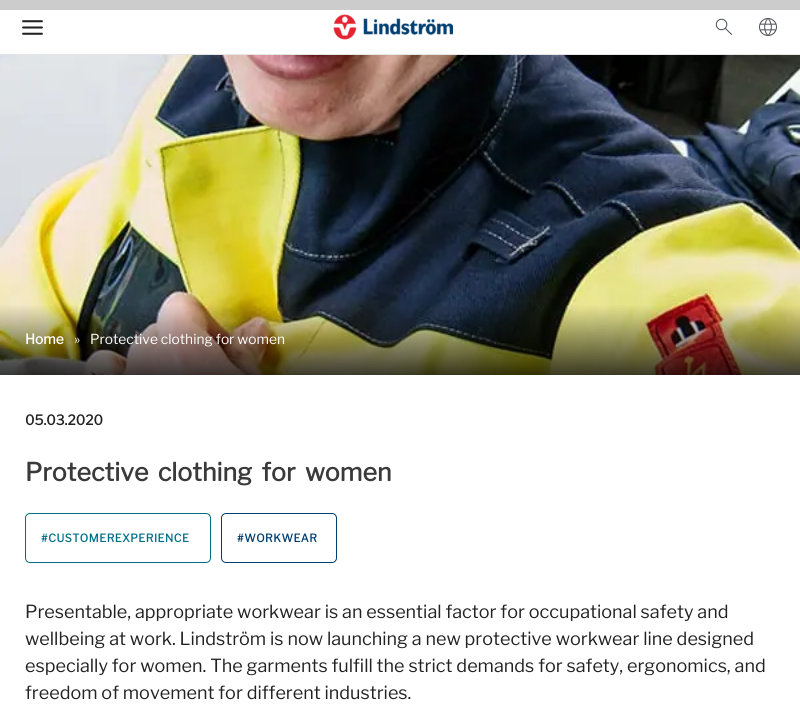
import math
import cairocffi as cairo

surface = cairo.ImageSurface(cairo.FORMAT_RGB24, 800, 727)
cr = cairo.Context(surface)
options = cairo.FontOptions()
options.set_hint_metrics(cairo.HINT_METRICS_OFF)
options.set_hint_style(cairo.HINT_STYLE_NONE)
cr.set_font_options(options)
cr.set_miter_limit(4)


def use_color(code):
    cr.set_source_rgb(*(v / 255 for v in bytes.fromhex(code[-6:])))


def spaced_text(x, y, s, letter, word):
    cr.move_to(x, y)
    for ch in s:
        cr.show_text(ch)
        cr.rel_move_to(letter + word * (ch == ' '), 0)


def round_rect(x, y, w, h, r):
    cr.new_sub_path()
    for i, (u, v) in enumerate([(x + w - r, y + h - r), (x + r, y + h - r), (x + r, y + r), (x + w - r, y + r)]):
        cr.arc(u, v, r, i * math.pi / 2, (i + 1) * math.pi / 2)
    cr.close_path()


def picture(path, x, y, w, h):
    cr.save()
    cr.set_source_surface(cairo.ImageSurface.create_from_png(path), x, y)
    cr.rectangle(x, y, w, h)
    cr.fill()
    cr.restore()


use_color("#ffffff")
cr.paint()
use_color("#cccccc")
cr.rectangle(0, 0, 800, 10)
cr.fill()
use_color("#e5e5e5")
cr.rectangle(0, 54, 800, 1)
cr.fill()
picture("img1.png", 22, 20, 21, 15)
picture("img2.png", 333, 14, 120, 26)
picture("img3.png", 715, 18, 18, 18)
picture("img4.png", 759, 18, 18, 18)
picture("img5.png", 0, 55, 800, 320)
cr.select_font_face("Libre Franklin", cairo.FONT_SLANT_NORMAL, cairo.FONT_WEIGHT_BOLD)
cr.set_font_size(13.75)
use_color("#ffffff")
cr.move_to(25, 344)
cr.show_text("Home")
cr.select_font_face("Libre Franklin")
cr.move_to(74, 344)
cr.show_text("»")
cr.move_to(90, 344)
cr.show_text("Protective clothing for women")
cr.select_font_face("Libre Franklin", cairo.FONT_SLANT_NORMAL, cairo.FONT_WEIGHT_BOLD)
use_color("#222222")
cr.move_to(25, 425)
cr.show_text("05.03.2020")
cr.set_font_size(25)
use_color("#3a3a3a")
spaced_text(25, 481, "Protective clothing for women", 0, 4)
round_rect(25.5, 513.5, 185, 49, 4.5)
use_color("#006f86")
cr.set_line_width(1)
cr.stroke()
cr.set_font_size(11)
spaced_text(41, 542, "#CUSTOMEREXPERIENCE", 0.5, 0)
round_rect(221.5, 513.5, 115, 49, 4.5)
use_color("#003f72")
cr.stroke()
spaced_text(237, 542, "#WORKWEAR", 0.5, 0)
cr.select_font_face("Libre Franklin")
cr.set_font_size(18)
use_color("#222222")
cr.move_to(25, 618)
cr.show_text("Presentable, appropriate workwear is an essential factor for occupational safety and")
cr.move_to(25, 645)
cr.show_text("wellbeing at work. Lindström is now launching a new protective workwear line designed")
cr.move_to(25, 672)
cr.show_text("especially for women. The garments fulfill the strict demands for safety, ergonomics, and")
cr.move_to(25, 699)
cr.show_text("freedom of movement for different industries.")
surface.write_to_png("result.png")
